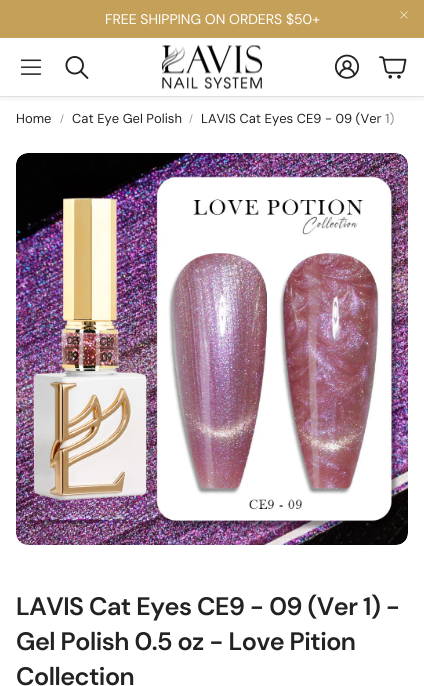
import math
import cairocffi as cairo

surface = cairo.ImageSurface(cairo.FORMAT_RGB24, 424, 686)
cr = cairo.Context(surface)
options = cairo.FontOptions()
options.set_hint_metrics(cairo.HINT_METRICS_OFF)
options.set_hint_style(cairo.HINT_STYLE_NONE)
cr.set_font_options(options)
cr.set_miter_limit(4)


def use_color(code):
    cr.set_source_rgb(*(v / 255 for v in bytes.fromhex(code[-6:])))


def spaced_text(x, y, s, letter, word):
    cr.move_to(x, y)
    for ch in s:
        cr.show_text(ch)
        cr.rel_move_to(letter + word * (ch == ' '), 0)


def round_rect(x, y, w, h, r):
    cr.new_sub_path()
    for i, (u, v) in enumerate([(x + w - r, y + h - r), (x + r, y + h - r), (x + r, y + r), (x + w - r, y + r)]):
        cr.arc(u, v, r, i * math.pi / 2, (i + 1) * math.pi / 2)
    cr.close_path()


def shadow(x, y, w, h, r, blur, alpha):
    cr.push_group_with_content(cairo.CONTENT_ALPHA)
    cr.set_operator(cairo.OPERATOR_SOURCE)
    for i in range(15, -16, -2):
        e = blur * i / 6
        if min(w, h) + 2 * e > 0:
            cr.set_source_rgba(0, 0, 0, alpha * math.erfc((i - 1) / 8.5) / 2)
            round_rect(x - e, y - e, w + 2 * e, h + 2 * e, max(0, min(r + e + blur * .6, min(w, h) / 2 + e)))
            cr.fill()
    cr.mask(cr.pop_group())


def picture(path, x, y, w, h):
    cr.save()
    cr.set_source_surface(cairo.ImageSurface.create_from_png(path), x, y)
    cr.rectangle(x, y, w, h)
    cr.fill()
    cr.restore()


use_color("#ffffff")
cr.paint()
use_color("#c5a059")
cr.rectangle(0, 0, 424, 38)
cr.fill()
cr.select_font_face("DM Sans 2")
cr.set_font_size(14)
use_color("#ffffff")
cr.move_to(105, 24)
cr.show_text("FREE SHIPPING ON ORDERS $50+")
picture("img1.png", 400, 11, 8, 8)
cr.save()
cr.rectangle(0, 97, 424, 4)
cr.clip()
use_color("#000000")
shadow(0, 41, 424, 59, 0, 3, 0.05)
cr.restore()
use_color("#dfdfdf")
cr.rectangle(0, 96, 424, 1)
cr.fill()
picture("img2.png", 20, 59, 22, 16)
picture("img3.png", 65, 56, 24, 23)
picture("img4.png", 162, 45, 100, 44)
picture("img5.png", 334, 54, 26, 25)
picture("img6.png", 379, 56, 28, 23)
cr.select_font_face("DM Sans")
cr.set_font_size(13)
use_color("#222321")
cr.move_to(201, 123)
cr.show_text("LAVIS Cat Eyes CE9 - 09 (Ver 1)")
cr.move_to(16, 123)
cr.show_text("Home")
cr.set_font_size(10)
use_color("#919190")
cr.move_to(60, 122)
cr.show_text("/")
cr.set_font_size(13)
use_color("#222321")
cr.move_to(72, 123)
cr.show_text("Cat Eye Gel Polish")
cr.set_font_size(10)
use_color("#919190")
cr.move_to(189, 122)
cr.show_text("/")
gradient = cairo.LinearGradient(376, 119, 408, 119)
gradient.add_color_stop_rgba(0, 1, 1, 1, 0)
gradient.add_color_stop_rgba(1, 1, 1, 1, 1)
cr.set_source(gradient)
cr.rectangle(377, 112, 17, 13)
cr.fill()
picture("img7.png", 16, 153, 392, 392)
cr.select_font_face("DM Sans SemiBold")
cr.set_font_size(25.25)
use_color("#222321")
spaced_text(16, 615, "LAVIS Cat Eyes CE9 - 09 (Ver 1) -", -0.5, 0)
spaced_text(16, 650, "Gel Polish 0.5 oz - Love Pition", -0.5, 0)
spaced_text(16, 685, "Collection", -0.5, 0)
surface.write_to_png("result.png")
